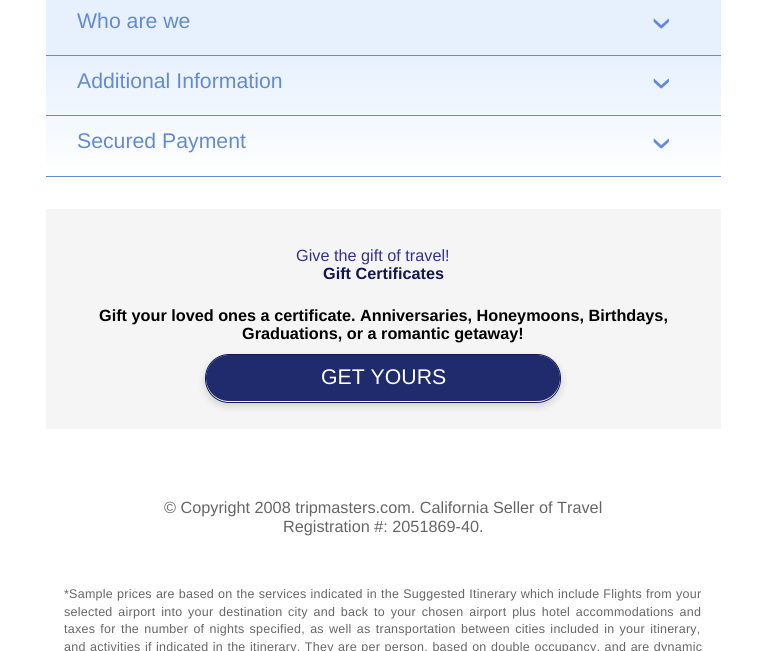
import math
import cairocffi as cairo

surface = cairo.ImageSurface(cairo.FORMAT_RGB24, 766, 651)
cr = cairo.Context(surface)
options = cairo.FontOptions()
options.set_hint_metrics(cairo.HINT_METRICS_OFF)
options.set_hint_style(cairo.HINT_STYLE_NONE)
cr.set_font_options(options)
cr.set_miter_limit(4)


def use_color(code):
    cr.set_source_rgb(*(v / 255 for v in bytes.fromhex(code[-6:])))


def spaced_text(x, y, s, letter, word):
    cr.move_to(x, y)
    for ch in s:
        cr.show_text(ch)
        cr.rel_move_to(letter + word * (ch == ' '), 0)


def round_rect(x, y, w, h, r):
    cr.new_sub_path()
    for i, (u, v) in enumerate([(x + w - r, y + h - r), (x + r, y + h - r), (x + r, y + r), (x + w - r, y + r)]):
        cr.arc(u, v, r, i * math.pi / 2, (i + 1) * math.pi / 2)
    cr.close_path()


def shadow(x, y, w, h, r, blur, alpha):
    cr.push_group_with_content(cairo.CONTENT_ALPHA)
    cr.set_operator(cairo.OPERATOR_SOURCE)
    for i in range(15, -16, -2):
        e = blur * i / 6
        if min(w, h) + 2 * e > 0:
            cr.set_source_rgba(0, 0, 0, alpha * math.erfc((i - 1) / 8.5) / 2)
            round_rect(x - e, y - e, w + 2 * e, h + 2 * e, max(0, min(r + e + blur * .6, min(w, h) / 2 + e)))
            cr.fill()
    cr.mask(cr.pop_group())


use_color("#ffffff")
cr.paint()
gradient = cairo.LinearGradient(384, -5, 384, 178)
gradient.add_color_stop_rgba(0.35, 0.906, 0.945, 0.996, 1)
gradient.add_color_stop_rgba(1, 1, 1, 1, 1)
cr.set_source(gradient)
cr.rectangle(46, 0, 675, 166)
cr.fill()
use_color("#638bd1")
cr.rectangle(46, 55, 675, 1)
cr.fill()
cr.select_font_face("Liberation Sans")
cr.set_font_size(21.25)
cr.move_to(77, 28)
cr.show_text("Who are we")
cr.set_font_size(39)
cr.save()
cr.translate(651, 17)
cr.rotate(90 * math.pi / 180)
cr.move_to(0, 0)
cr.show_text("›")
cr.restore()
cr.rectangle(46, 115, 675, 1)
cr.fill()
cr.set_font_size(21.25)
cr.move_to(77, 88)
cr.show_text("Additional Information")
cr.set_font_size(39)
cr.save()
cr.translate(651, 77)
cr.rotate(90 * math.pi / 180)
cr.move_to(0, 0)
cr.show_text("›")
cr.restore()
cr.rectangle(46, 176, 675, 1)
cr.fill()
cr.set_font_size(21.25)
cr.move_to(77, 148)
cr.show_text("Secured Payment")
cr.set_font_size(39)
cr.save()
cr.translate(651, 137)
cr.rotate(90 * math.pi / 180)
cr.move_to(0, 0)
cr.show_text("›")
cr.restore()
use_color("#f5f5f5")
cr.rectangle(46, 209, 675, 220)
cr.fill()
cr.set_font_size(16.25)
use_color("#313197")
cr.move_to(296, 261)
cr.show_text("Give the gift of travel!")
cr.select_font_face("Liberation Sans", cairo.FONT_SLANT_NORMAL, cairo.FONT_WEIGHT_BOLD)
use_color("#121852")
cr.move_to(323, 279)
cr.show_text("Gift Certificates")
use_color("#000000")
cr.move_to(99, 321)
cr.show_text("Gift your loved ones a certificate. Anniversaries, Honeymoons, Birthdays,")
cr.move_to(242, 339)
cr.show_text("Graduations, or a romantic getaway!")
cr.save()
cr.set_fill_rule(cairo.FILL_RULE_EVEN_ODD)
cr.new_path()
cr.move_to(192, 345)
cr.line_to(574, 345)
cr.line_to(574, 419)
cr.line_to(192, 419)
cr.close_path()
cr.move_to(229, 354)
cr.line_to(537, 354)
cr.curve_to(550.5, 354, 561, 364.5, 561, 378)
cr.line_to(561, 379)
cr.curve_to(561, 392.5, 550.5, 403, 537, 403)
cr.line_to(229, 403)
cr.curve_to(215.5, 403, 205, 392.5, 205, 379)
cr.line_to(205, 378)
cr.curve_to(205, 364.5, 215.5, 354, 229, 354)
cr.close_path()
cr.clip()
use_color("#000000")
shadow(205, 358, 356, 48, 24, 4, 0.16)
cr.restore()
use_color("#1f2b6c")
round_rect(206, 355, 354, 46, 23)
cr.fill()
round_rect(205.5, 354.5, 355, 48, 23.5)
use_color("#121852")
cr.set_line_width(1)
cr.stroke()
cr.select_font_face("Liberation Sans")
cr.set_font_size(21.25)
use_color("#ffffff")
cr.move_to(321, 384)
cr.show_text("GET YOURS")
cr.set_font_size(16.25)
use_color("#666666")
cr.move_to(164, 513)
cr.show_text("© Copyright 2008 tripmasters.com. California Seller of Travel")
cr.move_to(283, 532)
cr.show_text("Registration #: 2051869‐40.")
cr.set_font_size(12.5)
spaced_text(64, 598, "*Sample prices are based on the services indicated in the Suggested Itinerary which include Flights from your", 0.25, 0.3)
spaced_text(64, 616, "selected airport into your destination city and back to your chosen airport plus hotel accommodations and", 0.25, 2)
spaced_text(64, 633, "taxes for the number of nights specified, as well as transportation between cities included in your itinerary,", 0.25, 1.5)
spaced_text(64, 651, "and activities if indicated in the itinerary. They are per person, based on double occupancy, and are dynamic", 0.25, 0.7)
surface.write_to_png("result.png")
